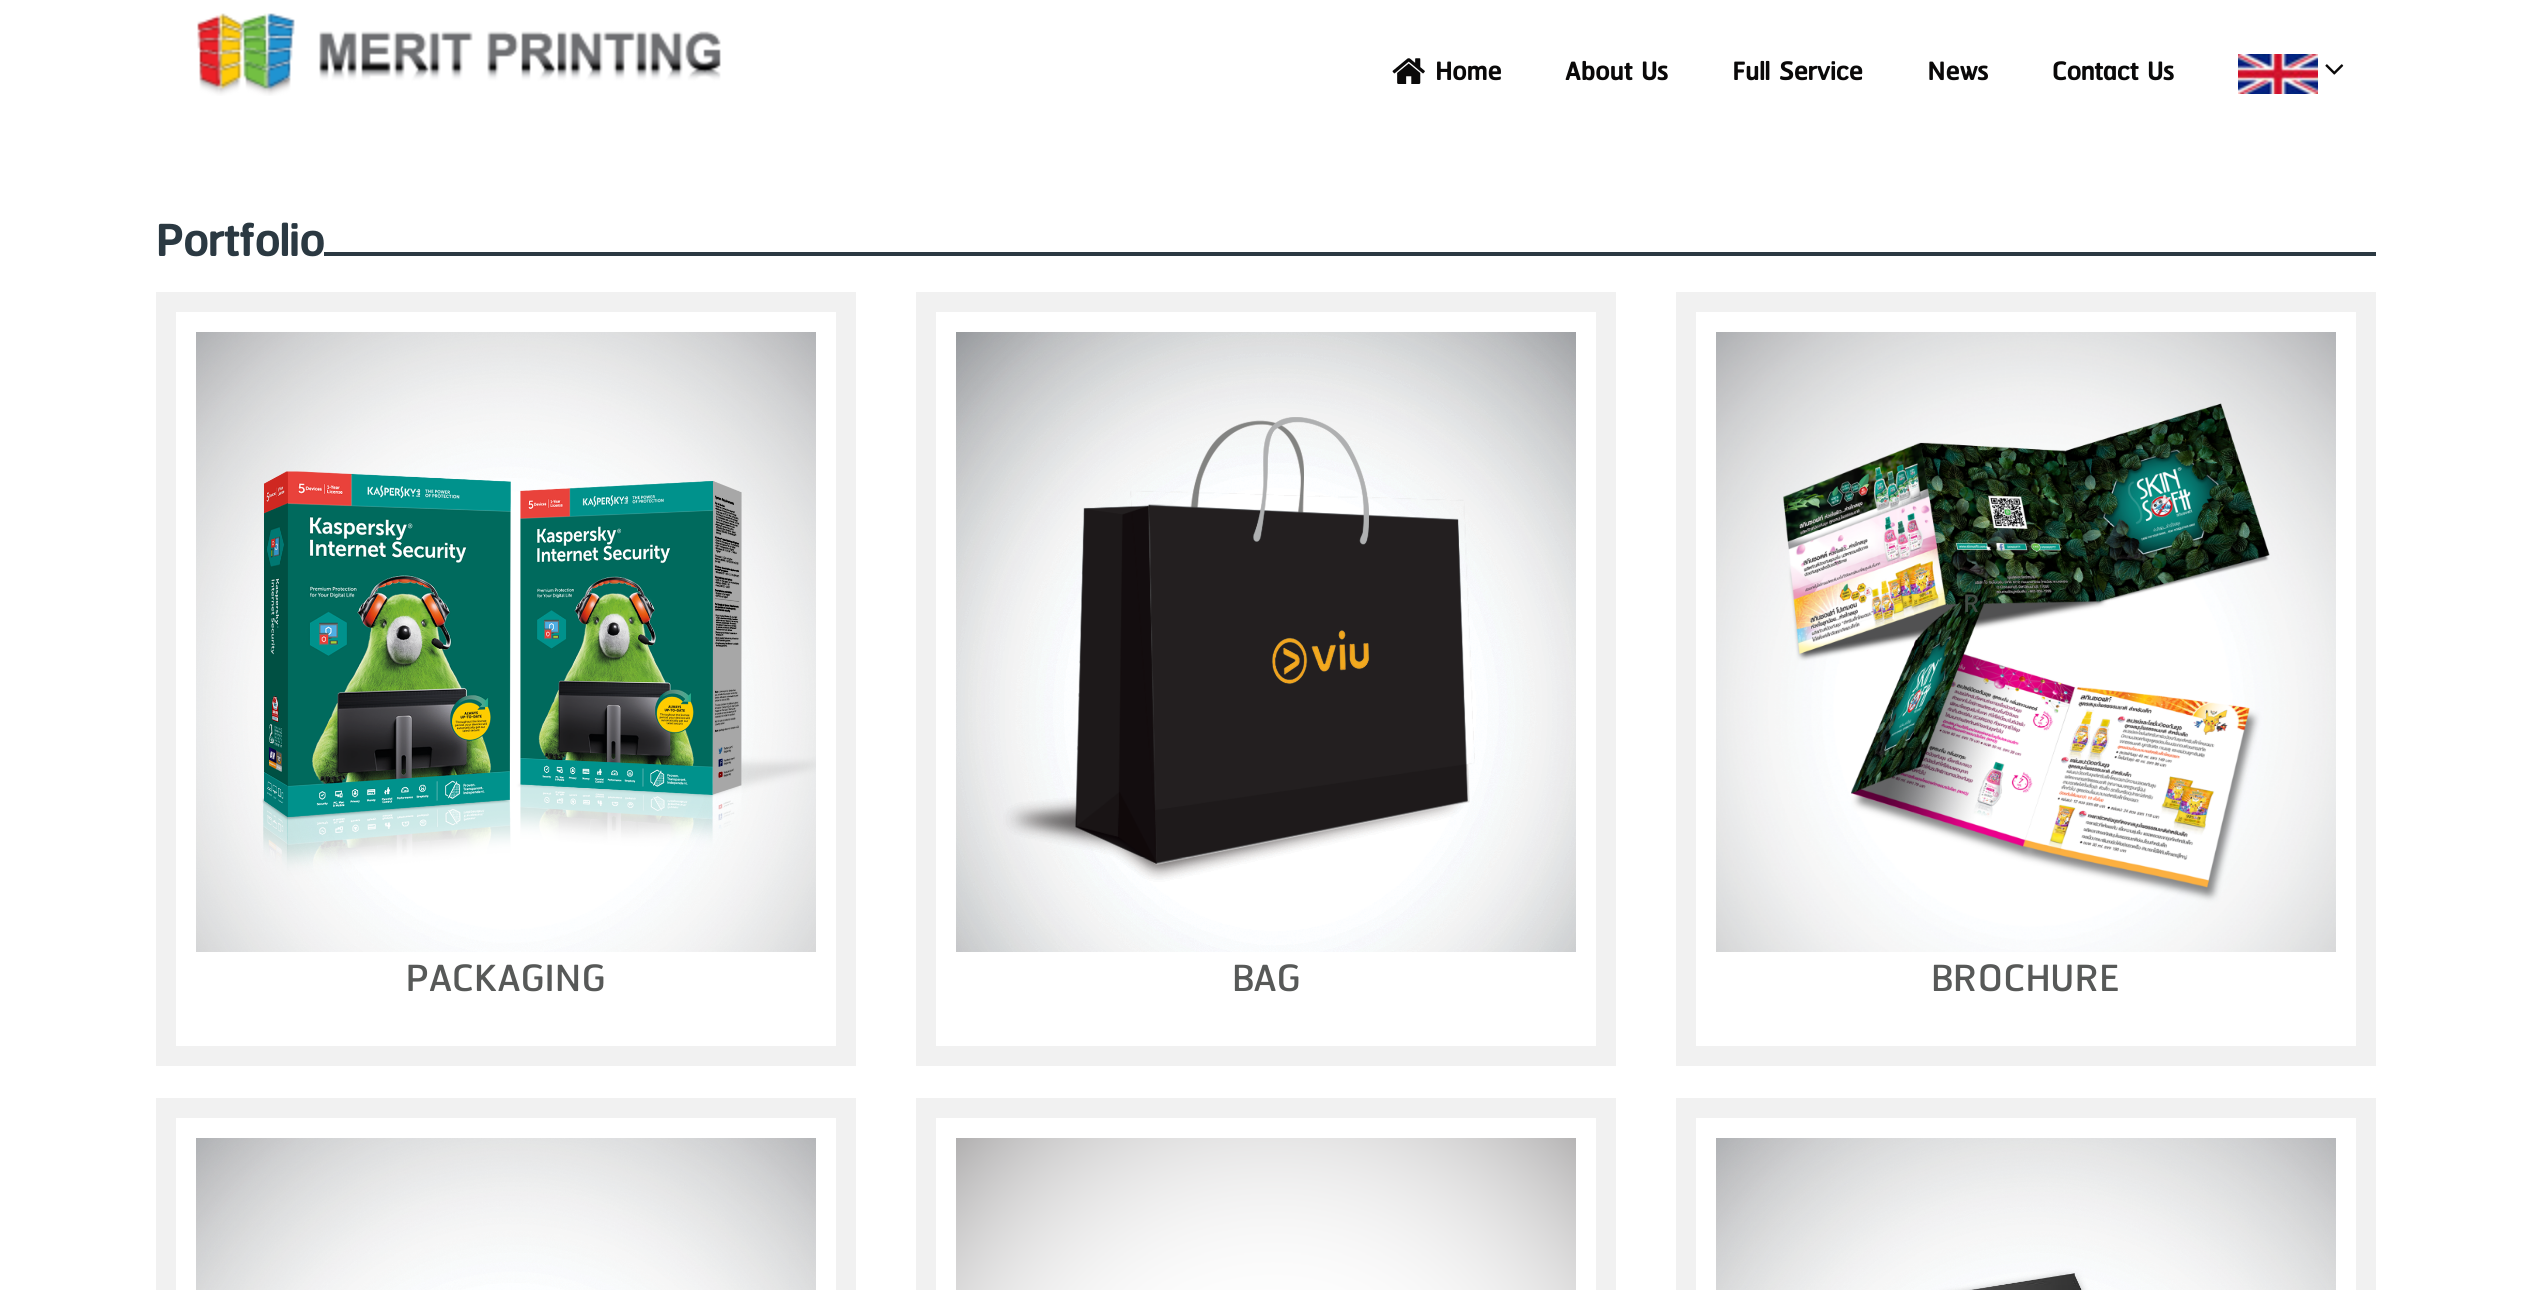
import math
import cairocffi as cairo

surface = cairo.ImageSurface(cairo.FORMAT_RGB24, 2531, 1290)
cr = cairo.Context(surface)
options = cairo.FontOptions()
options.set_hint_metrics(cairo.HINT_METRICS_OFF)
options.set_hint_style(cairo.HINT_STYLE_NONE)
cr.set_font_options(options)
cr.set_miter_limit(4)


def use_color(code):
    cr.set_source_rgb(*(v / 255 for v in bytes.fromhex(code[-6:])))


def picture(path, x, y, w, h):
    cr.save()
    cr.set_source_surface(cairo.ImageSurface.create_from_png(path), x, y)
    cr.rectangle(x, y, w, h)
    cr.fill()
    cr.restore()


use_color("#ffffff")
cr.paint()
picture("img1.png", 197, 13, 524, 83)
picture("img2.png", 1392, 58, 33, 26)
cr.select_font_face("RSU", cairo.FONT_SLANT_NORMAL, cairo.FONT_WEIGHT_BOLD)
cr.set_font_size(32)
use_color("#0a0909")
cr.move_to(1435, 80)
cr.show_text("Home")
cr.move_to(1565, 80)
cr.show_text("About Us")
cr.move_to(1732, 80)
cr.show_text("Full Service")
cr.move_to(1927, 80)
cr.show_text("News")
cr.move_to(2052, 80)
cr.show_text("Contact Us")
picture("img3.png", 2238, 54, 80, 40)
picture("img4.png", 2325, 64, 19, 11)
cr.set_font_size(56)
use_color("#2b3942")
cr.move_to(156, 256)
cr.show_text("Portfolio")
cr.rectangle(324, 252, 2052, 4)
cr.fill()
cr.rectangle(166, 302, 680, 754)
use_color("#f1f1f1")
cr.set_line_width(20)
cr.stroke()
picture("img5.png", 196, 332, 620, 620)
cr.select_font_face("RSU")
cr.set_font_size(48)
use_color("#575958")
cr.move_to(406, 991)
cr.show_text("PACKAGING")
cr.rectangle(926, 302, 680, 754)
use_color("#f1f1f1")
cr.stroke()
picture("img6.png", 956, 332, 620, 620)
use_color("#575958")
cr.move_to(1232, 991)
cr.show_text("BAG")
cr.rectangle(1686, 302, 680, 754)
use_color("#f1f1f1")
cr.stroke()
picture("img7.png", 1716, 332, 620, 620)
cr.set_font_size(32)
use_color("#434c45")
cr.move_to(1963, 612)
cr.show_text("R")
cr.set_font_size(48)
use_color("#575958")
cr.move_to(1931, 991)
cr.show_text("BROCHURE")
cr.rectangle(166, 1108, 680, 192)
use_color("#f1f1f1")
cr.stroke()
picture("img8.png", 196, 1138, 620, 152)
cr.rectangle(926, 1108, 680, 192)
cr.stroke()
picture("img9.png", 956, 1138, 620, 152)
cr.rectangle(1686, 1108, 680, 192)
cr.stroke()
picture("img10.png", 1716, 1138, 620, 152)
surface.write_to_png("result.png")
